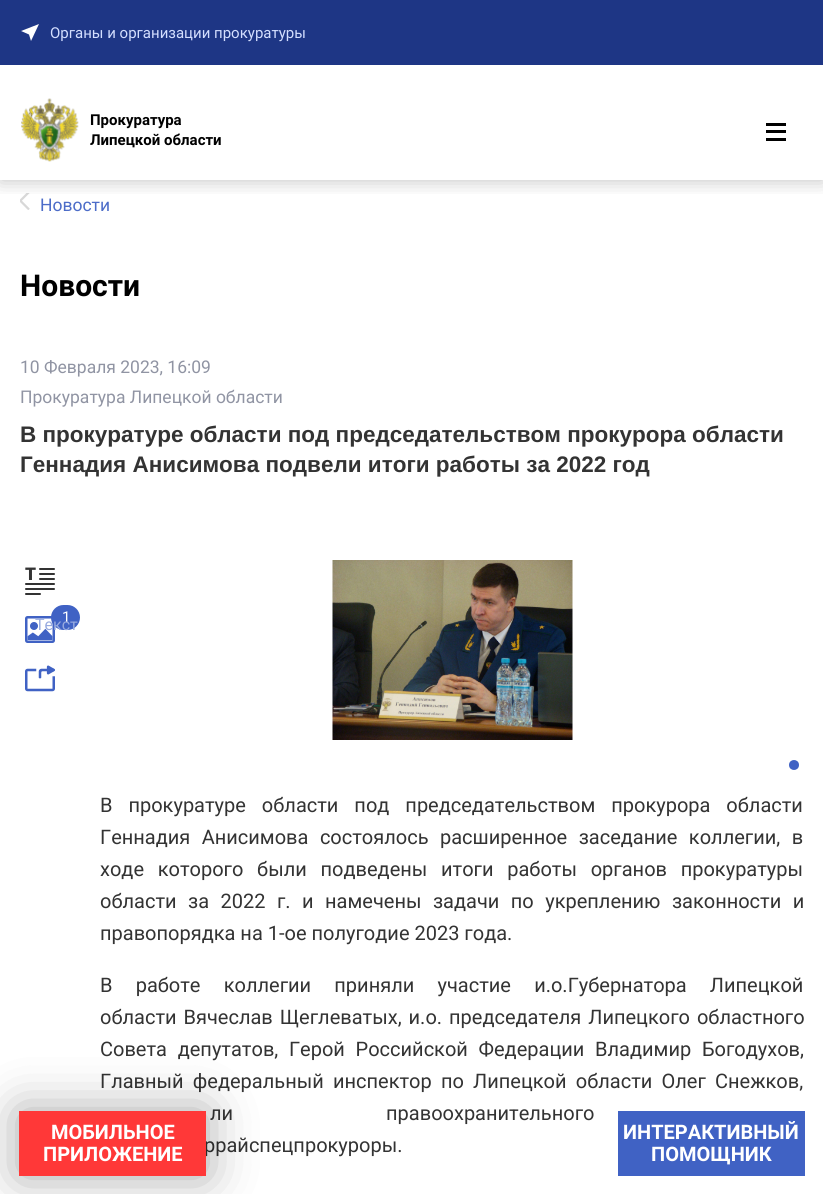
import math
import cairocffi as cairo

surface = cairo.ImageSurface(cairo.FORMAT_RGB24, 823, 1194)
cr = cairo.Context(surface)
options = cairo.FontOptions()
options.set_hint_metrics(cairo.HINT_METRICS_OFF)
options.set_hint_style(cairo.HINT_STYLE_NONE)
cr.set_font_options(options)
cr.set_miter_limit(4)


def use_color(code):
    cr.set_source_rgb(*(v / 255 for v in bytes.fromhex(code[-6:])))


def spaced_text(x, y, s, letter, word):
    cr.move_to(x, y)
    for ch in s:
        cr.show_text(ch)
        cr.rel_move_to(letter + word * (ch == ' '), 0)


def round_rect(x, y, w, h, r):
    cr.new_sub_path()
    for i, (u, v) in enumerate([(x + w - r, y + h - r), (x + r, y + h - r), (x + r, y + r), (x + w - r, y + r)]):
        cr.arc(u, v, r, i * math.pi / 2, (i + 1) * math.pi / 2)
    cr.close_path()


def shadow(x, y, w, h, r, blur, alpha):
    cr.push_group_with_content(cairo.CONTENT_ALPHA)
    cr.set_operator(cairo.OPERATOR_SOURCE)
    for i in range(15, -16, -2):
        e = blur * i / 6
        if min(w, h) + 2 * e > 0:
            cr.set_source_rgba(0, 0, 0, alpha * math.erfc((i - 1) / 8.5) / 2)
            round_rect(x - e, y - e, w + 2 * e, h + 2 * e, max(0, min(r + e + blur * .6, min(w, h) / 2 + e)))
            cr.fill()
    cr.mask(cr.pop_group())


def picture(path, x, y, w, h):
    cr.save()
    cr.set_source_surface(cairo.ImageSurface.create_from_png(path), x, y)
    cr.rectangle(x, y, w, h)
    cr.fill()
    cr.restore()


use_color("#ffffff")
cr.paint()
picture("img2.png", 20, 193, 10, 17)
cr.save()
cr.rectangle(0, 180, 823, 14)
cr.clip()
use_color("#000000")
shadow(0, 65, 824, 115, 0, 10, 0.25)
cr.restore()
use_color("#1e3685")
cr.rectangle(0, 0, 823, 65)
cr.fill()
use_color("#ffffff")
cr.new_path()
cr.move_to(31, 41)
cr.line_to(39, 24)
cr.line_to(21, 31)
cr.line_to(29, 34.5)
cr.close_path()
cr.fill()
cr.select_font_face("Roboto")
cr.set_font_size(15)
use_color("#d4dfff")
cr.move_to(50, 38)
cr.show_text("Органы и организации прокуратуры")
picture("img1.png", 21, 98, 58, 64)
cr.select_font_face("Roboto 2", cairo.FONT_SLANT_NORMAL, cairo.FONT_WEIGHT_BOLD)
use_color("#000000")
cr.move_to(90, 125)
cr.show_text("Прокуратура")
cr.move_to(90, 145)
cr.show_text("Липецкой области")
cr.rectangle(766, 130, 20, 3)
cr.fill()
cr.rectangle(766, 123, 20, 3)
cr.fill()
cr.rectangle(766, 138, 20, 3)
cr.fill()
cr.select_font_face("Roboto")
cr.set_font_size(17.5)
use_color("#4c6cc8")
cr.move_to(40, 211)
cr.show_text("Новости")
cr.select_font_face("Roboto", cairo.FONT_SLANT_NORMAL, cairo.FONT_WEIGHT_BOLD)
cr.set_font_size(30)
use_color("#000000")
cr.move_to(20, 296)
cr.show_text("Новости")
cr.select_font_face("Roboto")
cr.set_font_size(17.5)
use_color("#9094a3")
cr.move_to(20, 373)
cr.show_text("10 Февраля 2023, 16:09")
cr.move_to(20, 403)
cr.show_text("Прокуратура Липецкой области")
cr.select_font_face("Liberation Sans", cairo.FONT_SLANT_NORMAL, cairo.FONT_WEIGHT_BOLD)
cr.set_font_size(22.5)
use_color("#333333")
cr.move_to(20, 442)
cr.show_text("В прокуратуре области под председательством прокурора области")
cr.move_to(20, 472)
cr.show_text("Геннадия Анисимова подвели итоги работы за 2022 год")
picture("img3.png", 25, 616, 30, 27)
use_color("#4062c4")
round_rect(51, 605, 29, 25, 12.5)
cr.fill()
cr.select_font_face("Roboto")
cr.set_font_size(15)
use_color("#ffffff")
cr.move_to(62, 622)
cr.show_text("1")
picture("img4.png", 25, 567, 30, 28)
cr.set_font_size(16)
use_color("#97aadf")
cr.move_to(35, 630)
cr.show_text("Текст")
picture("img5.png", 25, 665, 30, 27)
picture("img6.png", 332, 560, 241, 180)
use_color("#4062c4")
cr.arc(794, 765, 3.5, 0, 2 * math.pi)
cr.fill_preserve()
cr.set_line_width(3)
cr.stroke()
cr.set_font_size(20)
use_color("#333333")
spaced_text(100, 812, "В прокуратуре области под председательством прокурора области", 0, 11)
spaced_text(100, 844, "Геннадия Анисимова состоялось расширенное заседание коллегии, в", 0, 6.5)
spaced_text(100, 876, "ходе которого были подведены итоги работы органов прокуратуры", 0, 8.75)
spaced_text(100, 908, "области за 2022 г. и намечены задачи по укреплению законности и", 0, 6.5)
cr.move_to(100, 940)
cr.show_text("правопорядка на 1-ое полугодие 2023 года.")
spaced_text(100, 992, "В работе коллегии приняли участие и.о.Губернатора Липецкой", 0, 18.25)
spaced_text(100, 1024, "области Вячеслав Щеглеватых, и.о. председателя Липецкого областного", 0, 2)
spaced_text(100, 1056, "Совета депутатов, Герой Российской Федерации Владимир Богодухов,", 0, 5.75)
spaced_text(100, 1088, "Главный федеральный инспектор по Липецкой области Олег Снежков,", 0, 4.25)
spaced_text(210, 1120, "ли правоохранительного", 0, 148)
cr.move_to(204, 1152)
cr.show_text("ррайспецпрокуроры.")
use_color("#000000")
shadow(19, 1111, 187, 65, 0, 25, 0.35)
use_color("#ff3838")
cr.rectangle(19, 1111, 187, 65)
cr.fill()
cr.select_font_face("Roboto", cairo.FONT_SLANT_NORMAL, cairo.FONT_WEIGHT_BOLD)
use_color("#ffffff")
cr.move_to(51, 1139)
cr.show_text("МОБИЛЬНОЕ")
cr.move_to(43, 1161)
cr.show_text("ПРИЛОЖЕНИЕ")
use_color("#4062c4")
cr.rectangle(618, 1111, 187, 65)
cr.fill()
use_color("#ffffff")
cr.move_to(623, 1139)
cr.show_text("ИНТЕРАКТИВНЫЙ")
cr.move_to(651, 1161)
cr.show_text("ПОМОЩНИК")
surface.write_to_png("result.png")
